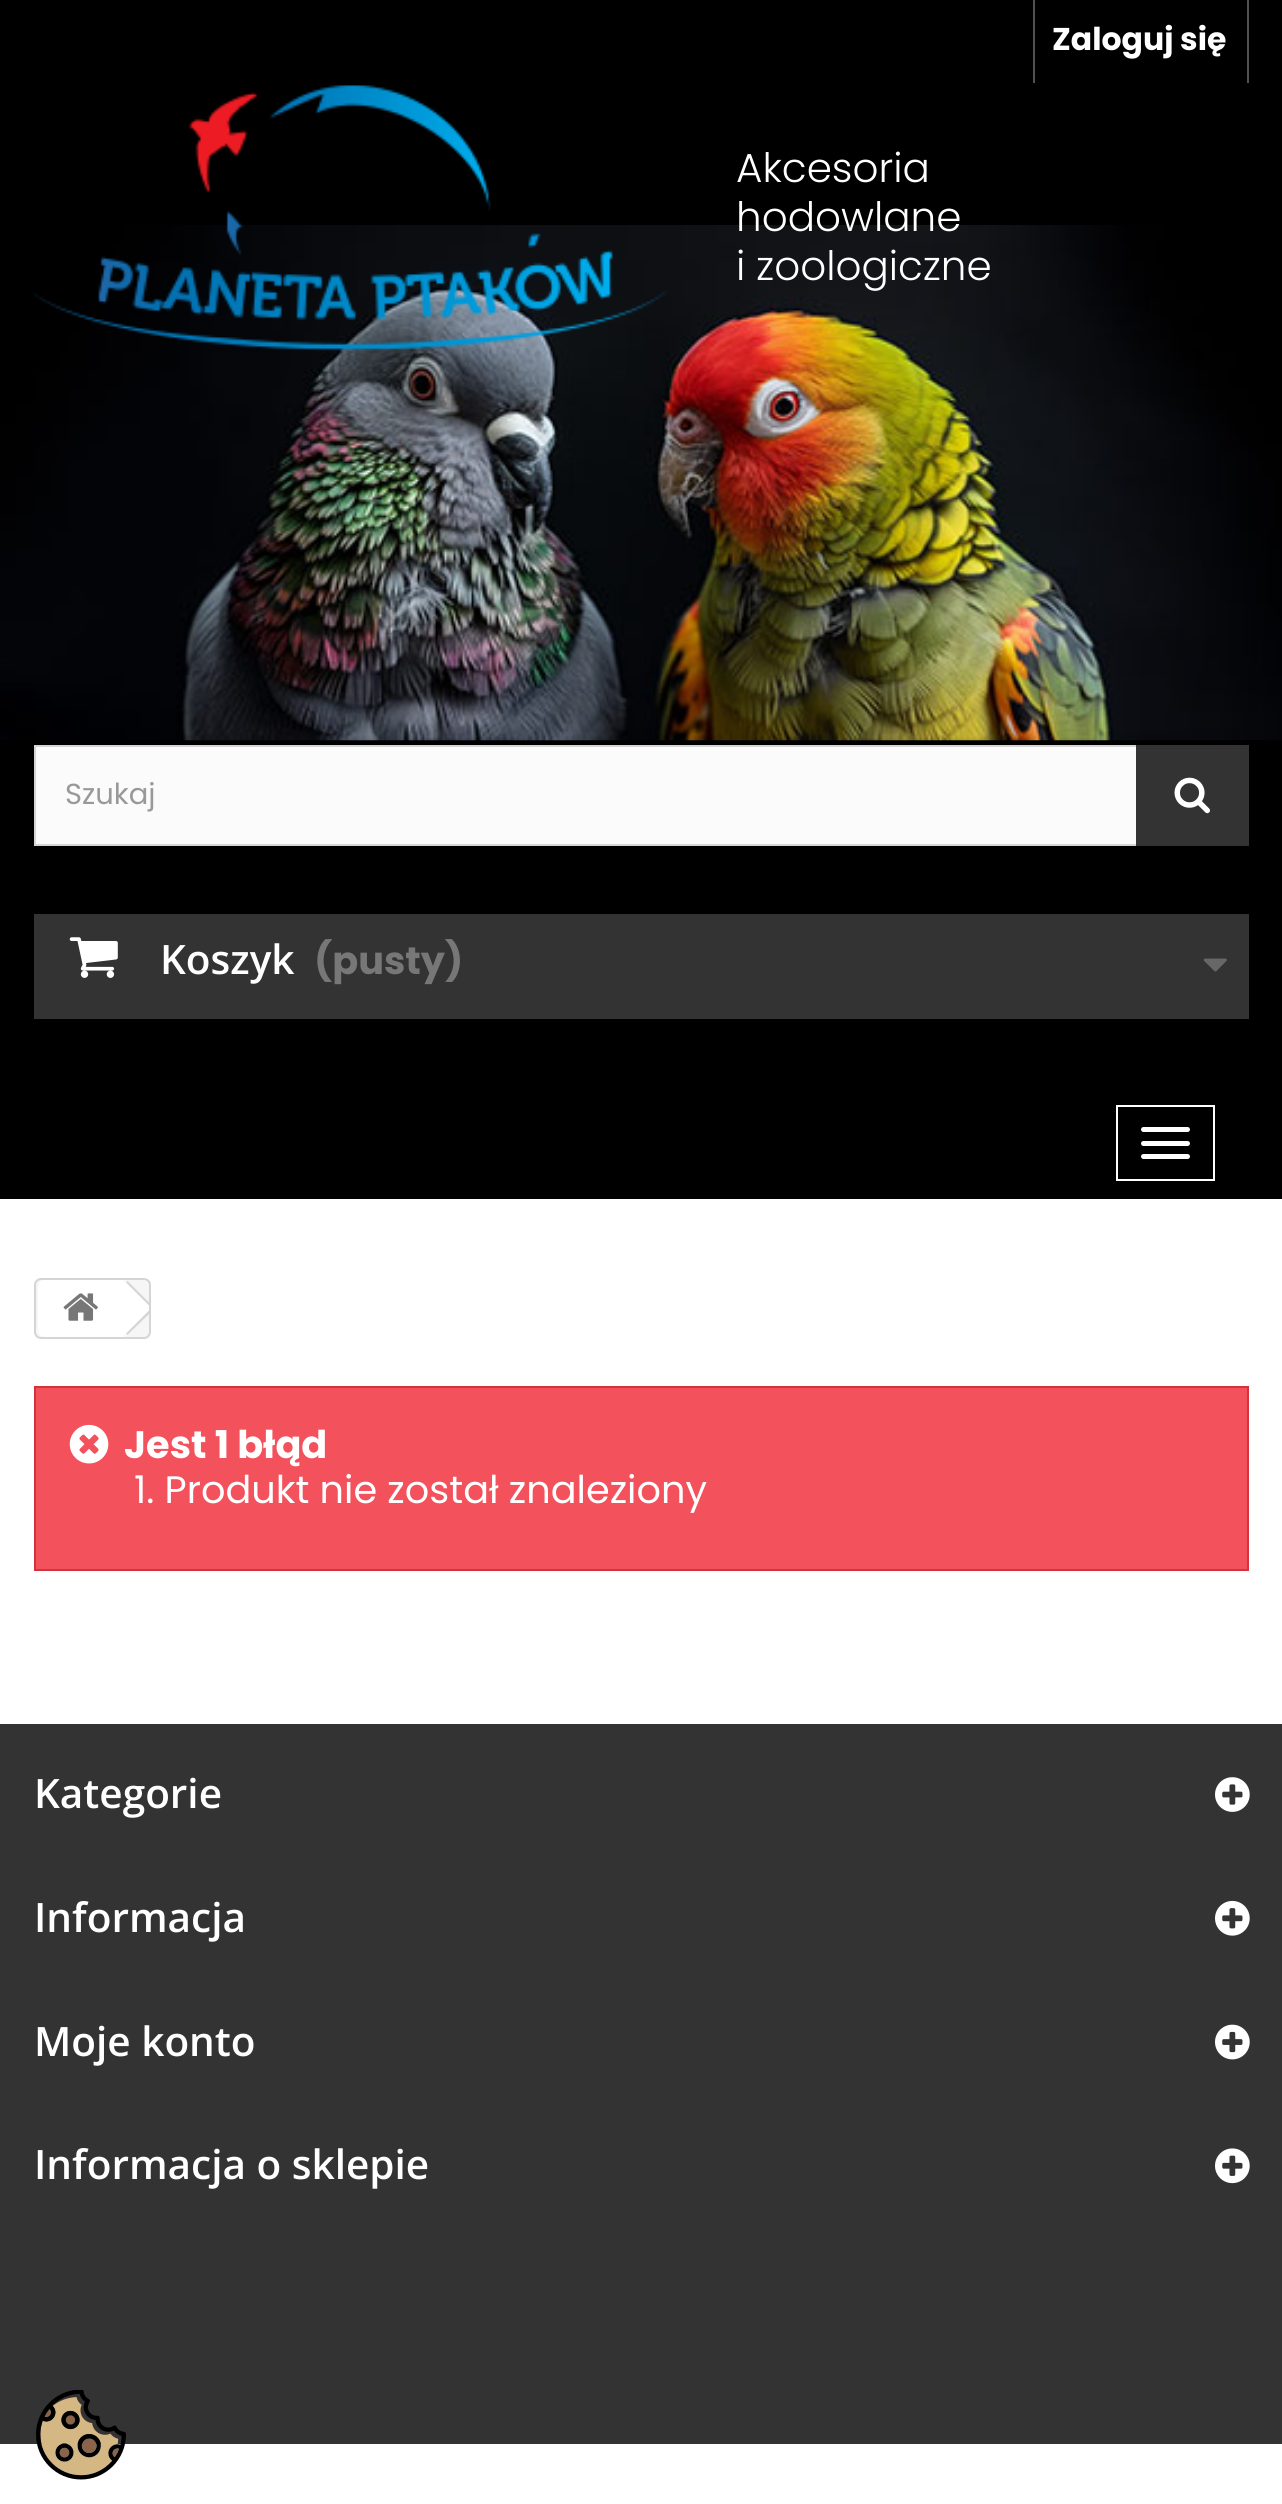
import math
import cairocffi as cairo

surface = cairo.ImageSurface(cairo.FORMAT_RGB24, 1282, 2504)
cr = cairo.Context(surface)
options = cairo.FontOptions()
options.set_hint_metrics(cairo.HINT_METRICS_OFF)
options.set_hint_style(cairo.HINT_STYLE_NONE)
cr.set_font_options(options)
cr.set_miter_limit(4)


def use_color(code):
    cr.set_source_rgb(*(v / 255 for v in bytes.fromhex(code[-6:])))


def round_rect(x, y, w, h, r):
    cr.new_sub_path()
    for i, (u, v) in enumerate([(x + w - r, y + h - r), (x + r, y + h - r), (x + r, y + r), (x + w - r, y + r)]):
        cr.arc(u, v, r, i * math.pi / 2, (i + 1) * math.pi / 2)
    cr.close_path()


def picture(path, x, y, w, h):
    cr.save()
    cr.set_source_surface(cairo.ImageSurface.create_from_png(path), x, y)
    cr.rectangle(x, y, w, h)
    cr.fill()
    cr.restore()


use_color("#ffffff")
cr.paint()
use_color("#000000")
cr.rectangle(0, 0, 1282, 1199)
cr.fill()
cr.rectangle(1117, 1106, 97, 74)
use_color("#ffffff")
cr.stroke()
round_rect(1141, 1127, 49, 5, 2.5)
cr.fill()
round_rect(1141, 1141, 49, 5, 2.5)
cr.fill()
round_rect(1141, 1154, 49, 5, 2.5)
cr.fill()
picture("img1.png", 0, 225, 1282, 516)
use_color("#515151")
cr.rectangle(1247, 0, 2, 83)
cr.fill()
cr.rectangle(1033, 0, 2, 83)
cr.fill()
cr.select_font_face("Poppins", cairo.FONT_SLANT_NORMAL, cairo.FONT_WEIGHT_BOLD)
cr.set_font_size(31.5)
use_color("#ffffff")
cr.move_to(1052, 50)
cr.show_text("Zaloguj się")
picture("img2.png", 34, 85, 634, 266)
cr.select_font_face("Poppins Light")
cr.set_font_size(40.5)
cr.move_to(736, 182)
cr.show_text("Akcesoria")
cr.move_to(736, 231)
cr.show_text("hodowlane")
cr.move_to(736, 280)
cr.show_text("i zoologiczne")
use_color("#fbfbfb")
cr.rectangle(36, 747, 1100, 97)
cr.fill()
cr.rectangle(35, 746, 1213, 99)
use_color("#d6d4d4")
cr.stroke()
cr.select_font_face("Poppins")
cr.set_font_size(29)
use_color("#999999")
cr.move_to(65, 804)
cr.show_text("Szukaj")
use_color("#333333")
cr.rectangle(1136, 745, 113, 101)
cr.fill()
picture("img3.png", 1174, 777, 36, 37)
cr.rectangle(34, 914, 1215, 105)
cr.fill()
picture("img4.png", 69, 937, 49, 41)
cr.select_font_face("Open Sans SemiBold")
cr.set_font_size(40.5)
use_color("#ffffff")
cr.move_to(160, 974)
cr.show_text("Koszyk")
cr.select_font_face("Poppins", cairo.FONT_SLANT_NORMAL, cairo.FONT_WEIGHT_BOLD)
cr.set_font_size(38.25)
use_color("#777777")
cr.move_to(314, 974)
cr.show_text("(pusty)")
picture("img5.png", 1203, 958, 24, 14)
use_color("#f6f6f6")
round_rect(35, 1279, 115, 59, 6)
cr.fill_preserve()
use_color("#d6d4d4")
cr.stroke()
use_color("#ffffff")
cr.new_path()
cr.move_to(45, 1280)
cr.line_to(124, 1280)
cr.line_to(124, 1337)
cr.line_to(45, 1337)
cr.curve_to(41, 1337, 38, 1334, 38, 1330)
cr.line_to(38, 1287)
cr.curve_to(38, 1283, 41, 1280, 45, 1280)
cr.close_path()
cr.fill()
picture("img6.png", 63, 1293, 35, 28)
cr.new_path()
cr.move_to(129, 1283)
cr.line_to(149, 1303)
cr.line_to(149, 1313)
cr.line_to(129, 1334)
cr.curve_to(127, 1335, 125, 1335, 123, 1334)
cr.line_to(101, 1311)
cr.curve_to(99, 1310, 99, 1307, 101, 1305)
cr.line_to(123, 1283)
cr.curve_to(125, 1281, 127, 1281, 129, 1283)
cr.close_path()
cr.fill()
use_color("#d6d4d4")
cr.new_path()
cr.move_to(127.5, 1281)
cr.line_to(149, 1302.5)
cr.line_to(149, 1305.5)
cr.line_to(126, 1282.5)
cr.close_path()
cr.move_to(149, 1310.5)
cr.line_to(149, 1314)
cr.line_to(127.5, 1335)
cr.line_to(126, 1333.5)
cr.close_path()
cr.fill()
use_color("#f3515c")
cr.rectangle(35, 1387, 1213, 183)
cr.fill_preserve()
use_color("#d4323d")
cr.stroke()
picture("img7.png", 69, 1424, 40, 40)
use_color("#ffffff")
cr.move_to(124, 1458)
cr.show_text("Jest 1 błąd")
cr.select_font_face("Poppins")
cr.move_to(134, 1503)
cr.show_text("1. Produkt nie został znaleziony")
use_color("#333333")
cr.rectangle(0, 1724, 1282, 720)
cr.fill()
cr.select_font_face("Open Sans SemiBold")
cr.set_font_size(40.5)
use_color("#ffffff")
cr.move_to(34, 1808)
cr.show_text("Kategorie")
picture("img8.png", 1215, 1777, 35, 35)
cr.move_to(34, 1932)
cr.show_text("Informacja")
picture("img9.png", 1215, 1900, 35, 36)
cr.move_to(34, 2056)
cr.show_text("Moje konto")
picture("img10.png", 1215, 2024, 35, 36)
cr.move_to(34, 2179)
cr.show_text("Informacja o sklepie")
picture("img11.png", 1215, 2148, 35, 36)
picture("img12.png", 36, 2390, 90, 90)
surface.write_to_png("result.png")
